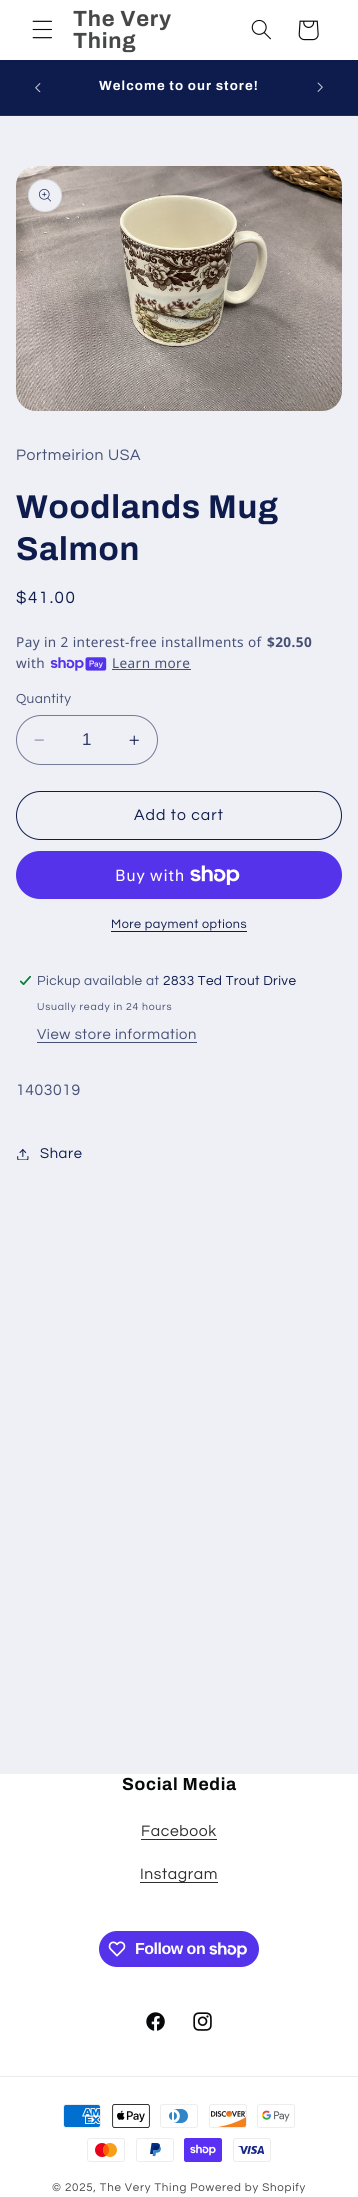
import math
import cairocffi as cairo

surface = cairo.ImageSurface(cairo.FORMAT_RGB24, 358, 2197)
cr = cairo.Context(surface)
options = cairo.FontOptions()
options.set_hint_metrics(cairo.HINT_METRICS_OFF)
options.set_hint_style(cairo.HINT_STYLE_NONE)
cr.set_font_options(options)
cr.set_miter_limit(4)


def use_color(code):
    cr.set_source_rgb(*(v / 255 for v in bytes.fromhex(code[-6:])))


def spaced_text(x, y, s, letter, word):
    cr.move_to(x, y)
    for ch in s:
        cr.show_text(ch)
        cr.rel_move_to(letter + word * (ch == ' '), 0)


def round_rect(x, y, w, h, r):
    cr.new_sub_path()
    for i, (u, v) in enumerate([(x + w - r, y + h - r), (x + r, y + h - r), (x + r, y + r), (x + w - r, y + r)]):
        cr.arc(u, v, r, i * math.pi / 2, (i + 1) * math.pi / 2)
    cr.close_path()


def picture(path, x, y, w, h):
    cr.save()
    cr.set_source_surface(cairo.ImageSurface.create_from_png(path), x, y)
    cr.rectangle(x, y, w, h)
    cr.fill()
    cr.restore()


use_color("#eff0f5")
cr.paint()
use_color("#ffffff")
cr.rectangle(0, 0, 358, 60)
cr.fill()
picture("img1.png", 32, 20, 20, 19)
cr.select_font_face("Archivo", cairo.FONT_SLANT_NORMAL, cairo.FONT_WEIGHT_BOLD)
cr.set_font_size(22)
use_color("#464747")
spaced_text(73, 26, "The Very", 0.7, 0)
spaced_text(73, 48, "Thing", 0.7, 0)
picture("img2.png", 251, 19, 20, 21)
picture("img3.png", 298, 20, 21, 21)
use_color("#0e1b4d")
cr.rectangle(0, 60, 358, 55)
cr.fill()
use_color("#212d5b")
cr.rectangle(0, 115, 358, 1)
cr.fill()
picture("img4.png", 35, 83, 6, 10)
cr.set_font_size(13.25)
use_color("#ffffff")
spaced_text(99, 90, "Welcome to our store!", 1.05, 0)
picture("img5.png", 317, 82, 6, 10)
picture("img6.png", 16, 166, 326, 245)
use_color("#eff0f5")
round_rect(28, 179, 34, 33, 16.5)
cr.fill()
round_rect(28.5, 179.5, 33, 32, 16)
cr.set_source_rgba(0.055, 0.106, 0.302, 0.1)
cr.set_line_width(1)
cr.stroke()
picture("img7.png", 39, 189, 12, 13)
cr.select_font_face("Questrial")
cr.set_font_size(15.75)
use_color("#465077")
spaced_text(16, 460, "Portmeirion USA", 0.6, 0)
cr.select_font_face("Archivo", cairo.FONT_SLANT_NORMAL, cairo.FONT_WEIGHT_BOLD)
cr.set_font_size(33)
use_color("#0e1b4d")
spaced_text(16, 518, "Woodlands Mug", 0.7, 0)
spaced_text(16, 560, "Salmon", 0.7, 0)
cr.select_font_face("Questrial")
cr.set_font_size(17)
spaced_text(16, 603, "$41.00", 1.5, 0)
cr.select_font_face("Noto Sans")
cr.set_font_size(13.6)
use_color("#465077")
spaced_text(16, 647, "Pay in 2 interest-free installments of", 0.4, 0)
cr.select_font_face("Noto Sans", cairo.FONT_SLANT_NORMAL, cairo.FONT_WEIGHT_BOLD)
spaced_text(267, 647, "$20.50", 0.4, 0)
cr.select_font_face("Noto Sans")
spaced_text(16, 668, "with", 0.4, 0)
picture("img8.png", 50, 657, 57, 14)
spaced_text(112, 668, "Learn more", 0.4, 0)
cr.rectangle(112, 669, 79, 1)
cr.fill()
cr.select_font_face("Questrial")
spaced_text(16, 703, "Quantity", 0.4, 0)
picture("img9.png", 34, 739, 10, 2)
picture("img10.png", 129, 735, 10, 10)
round_rect(16.5, 715.5, 141, 49, 24.5)
use_color("#737b99")
cr.stroke()
cr.select_font_face("Liberation Sans")
cr.set_font_size(17)
use_color("#303b66")
cr.move_to(82, 745)
cr.show_text("1")
round_rect(16.5, 791.5, 325, 48, 24)
use_color("#0e1b4d")
cr.stroke()
cr.select_font_face("Questrial")
cr.set_font_size(15.75)
spaced_text(134, 820, "Add to cart", 1.05, 0)
use_color("#5433eb")
round_rect(16, 851, 326, 48, 24)
cr.fill()
cr.select_font_face("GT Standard")
cr.set_font_size(16)
use_color("#ffffff")
spaced_text(115, 881, "Buy with", 0.6, 0)
picture("img11.png", 190, 865, 50, 20)
cr.select_font_face("Questrial")
cr.set_font_size(12.6)
use_color("#0e1b4d")
spaced_text(111, 928, "More payment options", 0.5, 0)
cr.rectangle(111, 931, 136, 1)
cr.fill()
picture("img12.png", 19, 975, 13, 11)
cr.set_font_size(13.6)
use_color("#465077")
spaced_text(37, 985, "Pickup available at", 0.4, 0)
use_color("#0e1b4d")
spaced_text(163, 985, "2833 Ted Trout Drive", 0.4, 0)
cr.set_font_size(10.5)
use_color("#465077")
spaced_text(37, 1010, "Usually ready in 24 hours", 0.75, 0)
cr.set_font_size(14.75)
spaced_text(37, 1039, "View store information", 0.6, 0)
cr.rectangle(37, 1042, 160, 1)
cr.fill()
cr.set_font_size(15.75)
spaced_text(16, 1095, "1403019", 0.6, 0)
picture("img13.png", 17, 1149, 12, 11)
cr.set_font_size(14.75)
use_color("#0e1b4d")
spaced_text(40, 1158, "Share", 0.6, 0)
use_color("#ffffff")
cr.rectangle(0, 1774, 358, 423)
cr.fill()
cr.select_font_face("Archivo", cairo.FONT_SLANT_NORMAL, cairo.FONT_WEIGHT_BOLD)
cr.set_font_size(17.5)
use_color("#08090a")
spaced_text(122, 1790, "Social Media", 0.7, 0)
cr.select_font_face("Questrial")
cr.set_font_size(15.75)
use_color("#2d2e2f")
spaced_text(141, 1836, "Facebook", 0.6, 0)
cr.rectangle(141, 1839, 76, 1)
cr.fill()
cr.rectangle(140, 1882, 78, 1)
cr.fill()
spaced_text(140, 1879, "Instagram", 0.6, 0)
use_color("#5433eb")
round_rect(99, 1931, 160, 36, 18)
cr.fill()
picture("img14.png", 108, 1941, 18, 16)
cr.select_font_face("Liberation Sans", cairo.FONT_SLANT_NORMAL, cairo.FONT_WEIGHT_BOLD)
cr.set_font_size(16)
use_color("#ffffff")
spaced_text(135, 1954, "Follow on", -0.5, 0)
picture("img15.png", 209, 1942, 38, 16)
picture("img16.png", 146, 2012, 19, 19)
picture("img17.png", 193, 2012, 19, 19)
use_color("#ebebeb")
cr.rectangle(0, 2076, 358, 1)
cr.fill()
picture("img18.png", 63, 2104, 38, 24)
picture("img19.png", 112, 2104, 38, 24)
picture("img20.png", 160, 2104, 38, 24)
picture("img21.png", 209, 2104, 38, 24)
picture("img22.png", 257, 2104, 38, 24)
picture("img23.png", 87, 2138, 38, 24)
picture("img24.png", 136, 2138, 38, 24)
picture("img25.png", 184, 2138, 38, 24)
picture("img26.png", 233, 2138, 38, 24)
cr.select_font_face("Questrial")
cr.set_font_size(11.55)
use_color("#464747")
spaced_text(52, 2191, "© 2025, The Very Thing Powered by Shopify", 0.75, 0)
surface.write_to_png("result.png")
